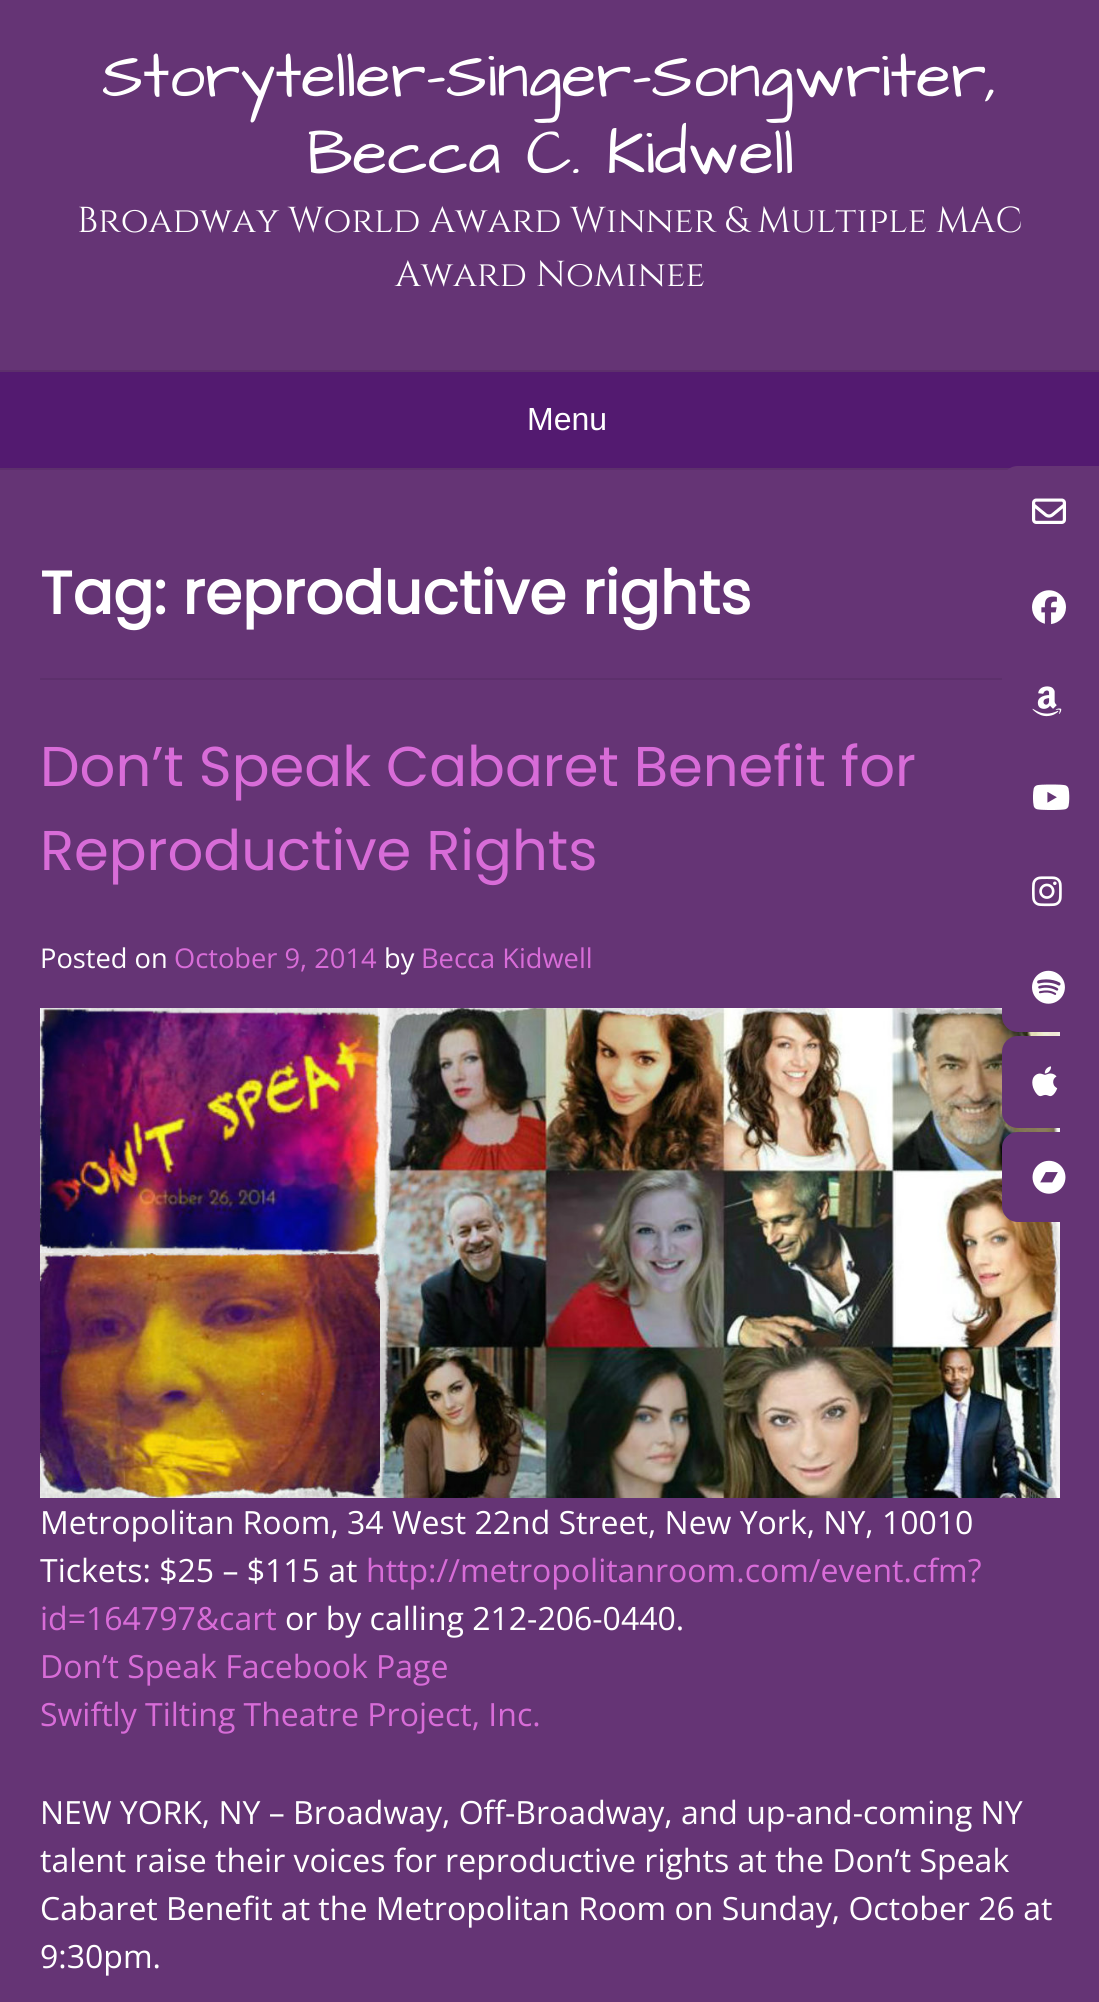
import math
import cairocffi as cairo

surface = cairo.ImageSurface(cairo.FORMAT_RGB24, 1099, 2002)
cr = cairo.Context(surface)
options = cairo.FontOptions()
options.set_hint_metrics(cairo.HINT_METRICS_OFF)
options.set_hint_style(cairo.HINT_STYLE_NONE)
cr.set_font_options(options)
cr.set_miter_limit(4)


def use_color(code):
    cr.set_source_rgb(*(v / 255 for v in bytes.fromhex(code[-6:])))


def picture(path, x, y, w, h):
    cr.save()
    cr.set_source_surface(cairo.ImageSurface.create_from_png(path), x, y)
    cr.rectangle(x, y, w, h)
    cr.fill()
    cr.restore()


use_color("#653475")
cr.paint()
use_color("#5d306c")
cr.rectangle(0, 468, 1011, 2)
cr.fill()
cr.select_font_face("Architects Daughter")
cr.set_font_size(64)
use_color("#ffffff")
cr.move_to(102, 96)
cr.show_text("Storyteller-Singer-Songwriter,")
cr.move_to(307, 173)
cr.show_text("Becca C. Kidwell")
cr.select_font_face("Cinzel")
cr.set_font_size(36)
cr.move_to(77, 232)
cr.show_text("Broadway World Award Winner & Multiple MAC")
cr.move_to(395, 286)
cr.show_text("Award Nominee")
use_color("#5d306c")
cr.rectangle(0, 370, 1099, 2)
cr.fill()
use_color("#531a70")
cr.rectangle(0, 372, 1099, 96)
cr.fill()
cr.select_font_face("Liberation Sans")
cr.set_font_size(32)
use_color("#ffffff")
cr.move_to(527, 430)
cr.show_text("Menu")
use_color("#5d306c")
cr.rectangle(40, 678, 962, 2)
cr.fill()
cr.select_font_face("Poppins", cairo.FONT_SLANT_NORMAL, cairo.FONT_WEIGHT_BOLD)
cr.set_font_size(60)
use_color("#ffffff")
cr.move_to(40, 614)
cr.show_text("Tag: reproductive rights")
cr.select_font_face("Poppins")
cr.set_font_size(56)
use_color("#d86cd8")
cr.move_to(40, 786)
cr.show_text("Don’t Speak Cabaret Benefit for")
cr.move_to(40, 870)
cr.show_text("Reproductive Rights")
cr.select_font_face("Open Sans")
cr.set_font_size(27.25)
use_color("#ffffff")
cr.move_to(40, 968)
cr.show_text("Posted on")
use_color("#d86cd8")
cr.move_to(174, 968)
cr.show_text("October 9, 2014")
use_color("#ffffff")
cr.move_to(384, 968)
cr.show_text("by")
use_color("#d86cd8")
cr.move_to(421, 968)
cr.show_text("Becca Kidwell")
picture("img1.png", 40, 1008, 1020, 490)
cr.set_font_size(32)
use_color("#ffffff")
cr.move_to(40, 1534)
cr.show_text("Metropolitan Room, 34 West 22nd Street, New York, NY, 10010")
cr.move_to(40, 1582)
cr.show_text("Tickets: $25 – $115 at")
use_color("#d86cd8")
cr.move_to(366, 1582)
cr.show_text("http://metropolitanroom.com/event.cfm?")
cr.move_to(40, 1630)
cr.show_text("id=164797&cart")
use_color("#ffffff")
cr.move_to(285, 1630)
cr.show_text("or by calling 212-206-0440.")
use_color("#d86cd8")
cr.move_to(40, 1678)
cr.show_text("Don’t Speak Facebook Page")
cr.move_to(40, 1726)
cr.show_text("Swiftly Tilting Theatre Project, Inc.")
use_color("#ffffff")
cr.move_to(40, 1824)
cr.show_text("NEW YORK, NY – Broadway, Off-Broadway, and up-and-coming NY")
cr.move_to(40, 1872)
cr.show_text("talent raise their voices for reproductive rights at the Don’t Speak")
cr.move_to(40, 1920)
cr.show_text("Cabaret Benefit at the Metropolitan Room on Sunday, October 26 at")
cr.move_to(40, 1968)
cr.show_text("9:30pm.")
use_color("#653475")
cr.new_path()
cr.move_to(1018, 466)
cr.line_to(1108, 466)
cr.line_to(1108, 558)
cr.line_to(1018, 558)
cr.curve_to(1009, 558, 1002, 551, 1002, 542)
cr.line_to(1002, 482)
cr.curve_to(1002, 473, 1009, 466, 1018, 466)
cr.close_path()
cr.fill()
picture("img2.png", 1032, 498, 34, 26)
picture("img3.png", 1032, 590, 34, 35)
picture("img4.png", 1032, 686, 30, 31)
picture("img5.png", 1033, 784, 37, 26)
picture("img6.png", 1032, 876, 30, 31)
cr.new_path()
cr.move_to(1018, 942)
cr.line_to(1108, 942)
cr.line_to(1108, 1032)
cr.line_to(1018, 1032)
cr.curve_to(1009, 1032, 1002, 1025, 1002, 1016)
cr.line_to(1002, 958)
cr.curve_to(1002, 949, 1009, 942, 1018, 942)
cr.close_path()
cr.fill()
picture("img7.png", 1032, 970, 33, 34)
cr.new_path()
cr.move_to(1018, 1036)
cr.line_to(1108, 1036)
cr.line_to(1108, 1128)
cr.line_to(1018, 1128)
cr.curve_to(1009, 1128, 1002, 1121, 1002, 1112)
cr.line_to(1002, 1052)
cr.curve_to(1002, 1043, 1009, 1036, 1018, 1036)
cr.close_path()
cr.fill()
picture("img8.png", 1032, 1066, 26, 31)
cr.new_path()
cr.move_to(1018, 1132)
cr.line_to(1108, 1132)
cr.line_to(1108, 1222)
cr.line_to(1018, 1222)
cr.curve_to(1009, 1222, 1002, 1215, 1002, 1206)
cr.line_to(1002, 1148)
cr.curve_to(1002, 1139, 1009, 1132, 1018, 1132)
cr.close_path()
cr.fill()
picture("img9.png", 1032, 1160, 34, 34)
surface.write_to_png("result.png")
